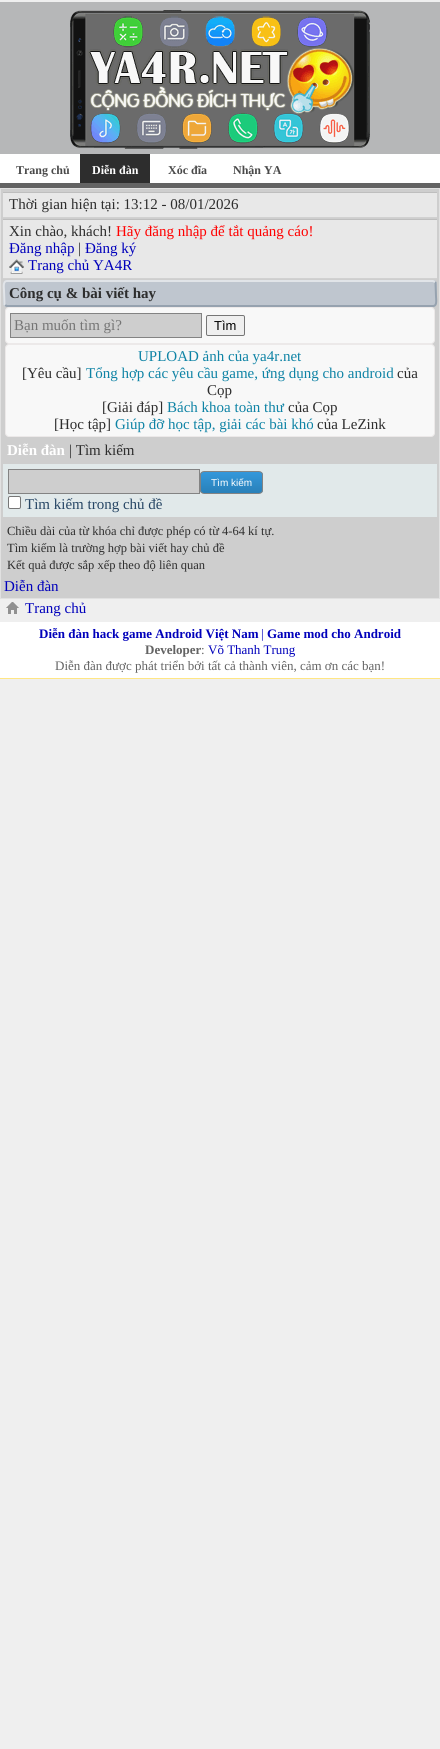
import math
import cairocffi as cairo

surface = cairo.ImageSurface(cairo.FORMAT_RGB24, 440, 1749)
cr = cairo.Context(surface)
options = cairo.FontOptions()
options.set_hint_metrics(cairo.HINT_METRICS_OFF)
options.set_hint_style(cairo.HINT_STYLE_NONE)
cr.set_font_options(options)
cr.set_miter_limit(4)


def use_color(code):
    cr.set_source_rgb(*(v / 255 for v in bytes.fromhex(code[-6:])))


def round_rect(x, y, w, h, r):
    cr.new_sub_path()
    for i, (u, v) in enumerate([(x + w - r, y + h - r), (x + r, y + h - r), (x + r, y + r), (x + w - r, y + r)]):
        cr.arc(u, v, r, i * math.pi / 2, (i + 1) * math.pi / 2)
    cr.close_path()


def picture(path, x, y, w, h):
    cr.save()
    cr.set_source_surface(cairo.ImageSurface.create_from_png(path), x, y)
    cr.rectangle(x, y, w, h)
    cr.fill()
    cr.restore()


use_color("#efefef")
cr.paint()
use_color("#b6b7b8")
cr.rectangle(0, 2, 440, 152)
cr.fill()
picture("img1.png", 70, 10, 300, 139)
use_color("#ffffff")
cr.rectangle(0, 154, 440, 29)
cr.fill()
use_color("#636363")
cr.rectangle(0, 183, 440, 5)
cr.fill()
cr.select_font_face("Liberation Serif", cairo.FONT_SLANT_NORMAL, cairo.FONT_WEIGHT_BOLD)
cr.set_font_size(12)
use_color("#494949")
cr.move_to(16, 174)
cr.show_text("Trang chủ")
use_color("#2d2d2d")
cr.rectangle(80, 154, 70, 29)
cr.fill()
use_color("#ffffff")
cr.move_to(92, 174)
cr.show_text("Diễn đàn")
use_color("#494949")
cr.move_to(168, 174)
cr.show_text("Xóc đĩa")
cr.move_to(233, 174)
cr.show_text("Nhận YA")
use_color("#cecece")
cr.rectangle(0.5, 188.5, 439, 410)
cr.fill_preserve()
use_color("#e1e1e1")
cr.set_line_width(1)
cr.stroke()
use_color("#e8e8e8")
cr.rectangle(3, 193, 434, 24)
cr.fill()
use_color("#bebebe")
cr.rectangle(3, 192, 434, 1)
cr.fill()
use_color("#d1d1d1")
cr.rectangle(3, 217, 434, 1)
cr.fill()
cr.select_font_face("Liberation Serif")
cr.set_font_size(15)
use_color("#2d2d2d")
cr.move_to(9, 209)
cr.show_text("Thời gian hiện tại: 13:12 - 08/01/2026")
use_color("#e8e8e8")
cr.rectangle(3, 220, 434, 58)
cr.fill()
use_color("#bebebe")
cr.rectangle(3, 219, 434, 1)
cr.fill()
use_color("#d1d1d1")
cr.rectangle(3, 278, 434, 1)
cr.fill()
use_color("#2d2d2d")
cr.move_to(9, 236)
cr.show_text("Xin chào, khách!")
use_color("#ff0000")
cr.move_to(116, 236)
cr.show_text("Hãy đăng nhập để tắt quảng cáo!")
use_color("#0000bb")
cr.move_to(9, 253)
cr.show_text("Đăng nhập")
use_color("#2d2d2d")
cr.move_to(78, 253)
cr.show_text("|")
use_color("#0000bb")
cr.move_to(85, 253)
cr.show_text("Đăng ký")
picture("img2.png", 9, 259, 15, 15)
cr.move_to(28, 270)
cr.show_text("Trang chủ YA4R")
use_color("#bfc6cf")
round_rect(3, 280, 434, 27, 4)
cr.fill()
cr.new_path()
cr.move_to(435, 282)
cr.line_to(435.5, 282.5)
cr.line_to(436, 296.5)
cr.curve_to(436, 299, 437.5, 306, 433, 306)
cr.line_to(7, 306)
cr.line_to(5, 305)
use_color("#96a2af")
cr.set_line_width(2)
cr.stroke()
cr.new_path()
cr.move_to(5, 305)
cr.line_to(4.5, 304.5)
cr.line_to(4, 290.5)
cr.curve_to(4, 288, 2.5, 281, 7, 281)
cr.line_to(433, 281)
cr.line_to(435, 282)
use_color("#e1e4e8")
cr.stroke()
cr.select_font_face("Liberation Serif", cairo.FONT_SLANT_NORMAL, cairo.FONT_WEIGHT_BOLD)
use_color("#2d2d2d")
cr.move_to(9, 298)
cr.show_text("Công cụ & bài viết hay")
use_color("#f8f8f8")
round_rect(5.5, 307.5, 429, 36, 3.5)
cr.fill_preserve()
use_color("#ece9e9")
cr.set_line_width(1)
cr.stroke()
use_color("#cecece")
cr.rectangle(10.5, 313.5, 191, 24)
cr.fill_preserve()
use_color("#838383")
cr.stroke()
cr.select_font_face("Liberation Serif")
use_color("#757575")
cr.move_to(14, 330)
cr.show_text("Bạn muốn tìm gì?")
use_color("#efefef")
round_rect(206.5, 315.5, 38, 20, 1.5)
cr.fill_preserve()
use_color("#767676")
cr.stroke()
cr.select_font_face("Liberation Sans")
cr.set_font_size(13)
use_color("#000000")
cr.move_to(214, 330)
cr.show_text("Tìm")
use_color("#f8f8f8")
round_rect(5.5, 344.5, 429, 92, 3.5)
cr.fill_preserve()
use_color("#ece9e9")
cr.stroke()
cr.select_font_face("Liberation Serif")
cr.set_font_size(15)
use_color("#0e83a5")
cr.move_to(138, 361)
cr.show_text("UPLOAD ảnh của ya4r.net")
use_color("#2d2d2d")
cr.move_to(22, 378)
cr.show_text("[Yêu cầu]")
use_color("#0e83a5")
cr.move_to(86, 378)
cr.show_text("Tổng hợp các yêu cầu game, ứng dụng cho android")
use_color("#2d2d2d")
cr.move_to(397, 378)
cr.show_text("của")
cr.move_to(207, 395)
cr.show_text("Cọp")
cr.move_to(102, 412)
cr.show_text("[Giải đáp]")
use_color("#0e83a5")
cr.move_to(167, 412)
cr.show_text("Bách khoa toàn thư")
use_color("#2d2d2d")
cr.move_to(288, 412)
cr.show_text("của Cọp")
cr.move_to(54, 429)
cr.show_text("[Học tập]")
use_color("#0e83a5")
cr.move_to(115, 429)
cr.show_text("Giúp đỡ học tập, giải các bài khó")
use_color("#2d2d2d")
cr.move_to(317, 429)
cr.show_text("của LeZink")
cr.select_font_face("Liberation Serif", cairo.FONT_SLANT_NORMAL, cairo.FONT_WEIGHT_BOLD)
use_color("#ffffff")
cr.move_to(7, 455)
cr.show_text("Diễn đàn")
cr.select_font_face("Liberation Serif")
use_color("#2d2d2d")
cr.move_to(69, 455)
cr.show_text("| Tìm kiếm")
use_color("#e1e9ea")
cr.rectangle(3, 464, 434, 53)
cr.fill()
use_color("#cecece")
cr.rectangle(8.5, 469.5, 191, 24)
cr.fill_preserve()
use_color("#838383")
cr.stroke()
cr.save()
round_rect(200, 471, 63, 23, 4)
cr.clip()
gradient = cairo.LinearGradient(232, 472, 232, 493)
gradient.add_color_stop_rgba(0, 0.204, 0.596, 0.859, 1)
gradient.add_color_stop_rgba(1, 0.161, 0.502, 0.725, 1)
cr.set_source(gradient)
cr.rectangle(200, 472, 63, 21)
cr.fill()
cr.restore()
round_rect(200.5, 471.5, 62, 22, 3.5)
cr.stroke()
cr.select_font_face("Liberation Sans")
cr.set_font_size(10)
use_color("#ffffff")
cr.move_to(211, 486)
cr.show_text("Tìm kiếm")
round_rect(8.5, 496.5, 12, 12, 1.5)
cr.fill_preserve()
use_color("#767676")
cr.stroke()
cr.select_font_face("Liberation Serif")
cr.set_font_size(15)
use_color("#264564")
cr.move_to(25, 509)
cr.show_text("Tìm kiếm trong chủ đề")
cr.set_font_size(12.5)
use_color("#2d2d2d")
cr.move_to(7, 535)
cr.show_text("Chiều dài của từ khóa chỉ được phép có từ 4-64 kí tự.")
cr.move_to(7, 552)
cr.show_text("Tìm kiếm là trường hợp bài viết hay chủ đề")
cr.move_to(7, 569)
cr.show_text("Kết quả được sắp xếp theo độ liên quan")
cr.set_font_size(15)
use_color("#0000bb")
cr.move_to(4, 591)
cr.show_text("Diễn đàn")
picture("img3.png", 6, 602, 13, 12)
cr.move_to(25, 613)
cr.show_text("Trang chủ")
use_color("#ffffff")
cr.rectangle(0, 622, 440, 56)
cr.fill()
use_color("#ffe684")
cr.rectangle(0, 678, 440, 1)
cr.fill()
cr.select_font_face("Liberation Serif", cairo.FONT_SLANT_NORMAL, cairo.FONT_WEIGHT_BOLD)
cr.set_font_size(13)
use_color("#0000bb")
cr.move_to(39, 638)
cr.show_text("Diễn đàn hack game Android Việt Nam")
cr.select_font_face("Liberation Serif")
cr.move_to(261, 638)
cr.show_text("|")
cr.select_font_face("Liberation Serif", cairo.FONT_SLANT_NORMAL, cairo.FONT_WEIGHT_BOLD)
cr.move_to(267, 638)
cr.show_text("Game mod cho Android")
use_color("#636363")
cr.move_to(145, 654)
cr.show_text("Developer")
cr.select_font_face("Liberation Serif")
cr.move_to(201, 654)
cr.show_text(":")
use_color("#0000bb")
cr.move_to(208, 654)
cr.show_text("Võ Thanh Trung")
use_color("#636363")
cr.move_to(55, 670)
cr.show_text("Diễn đàn được phát triển bởi tất cả thành viên, cảm ơn các bạn!")
surface.write_to_png("result.png")
